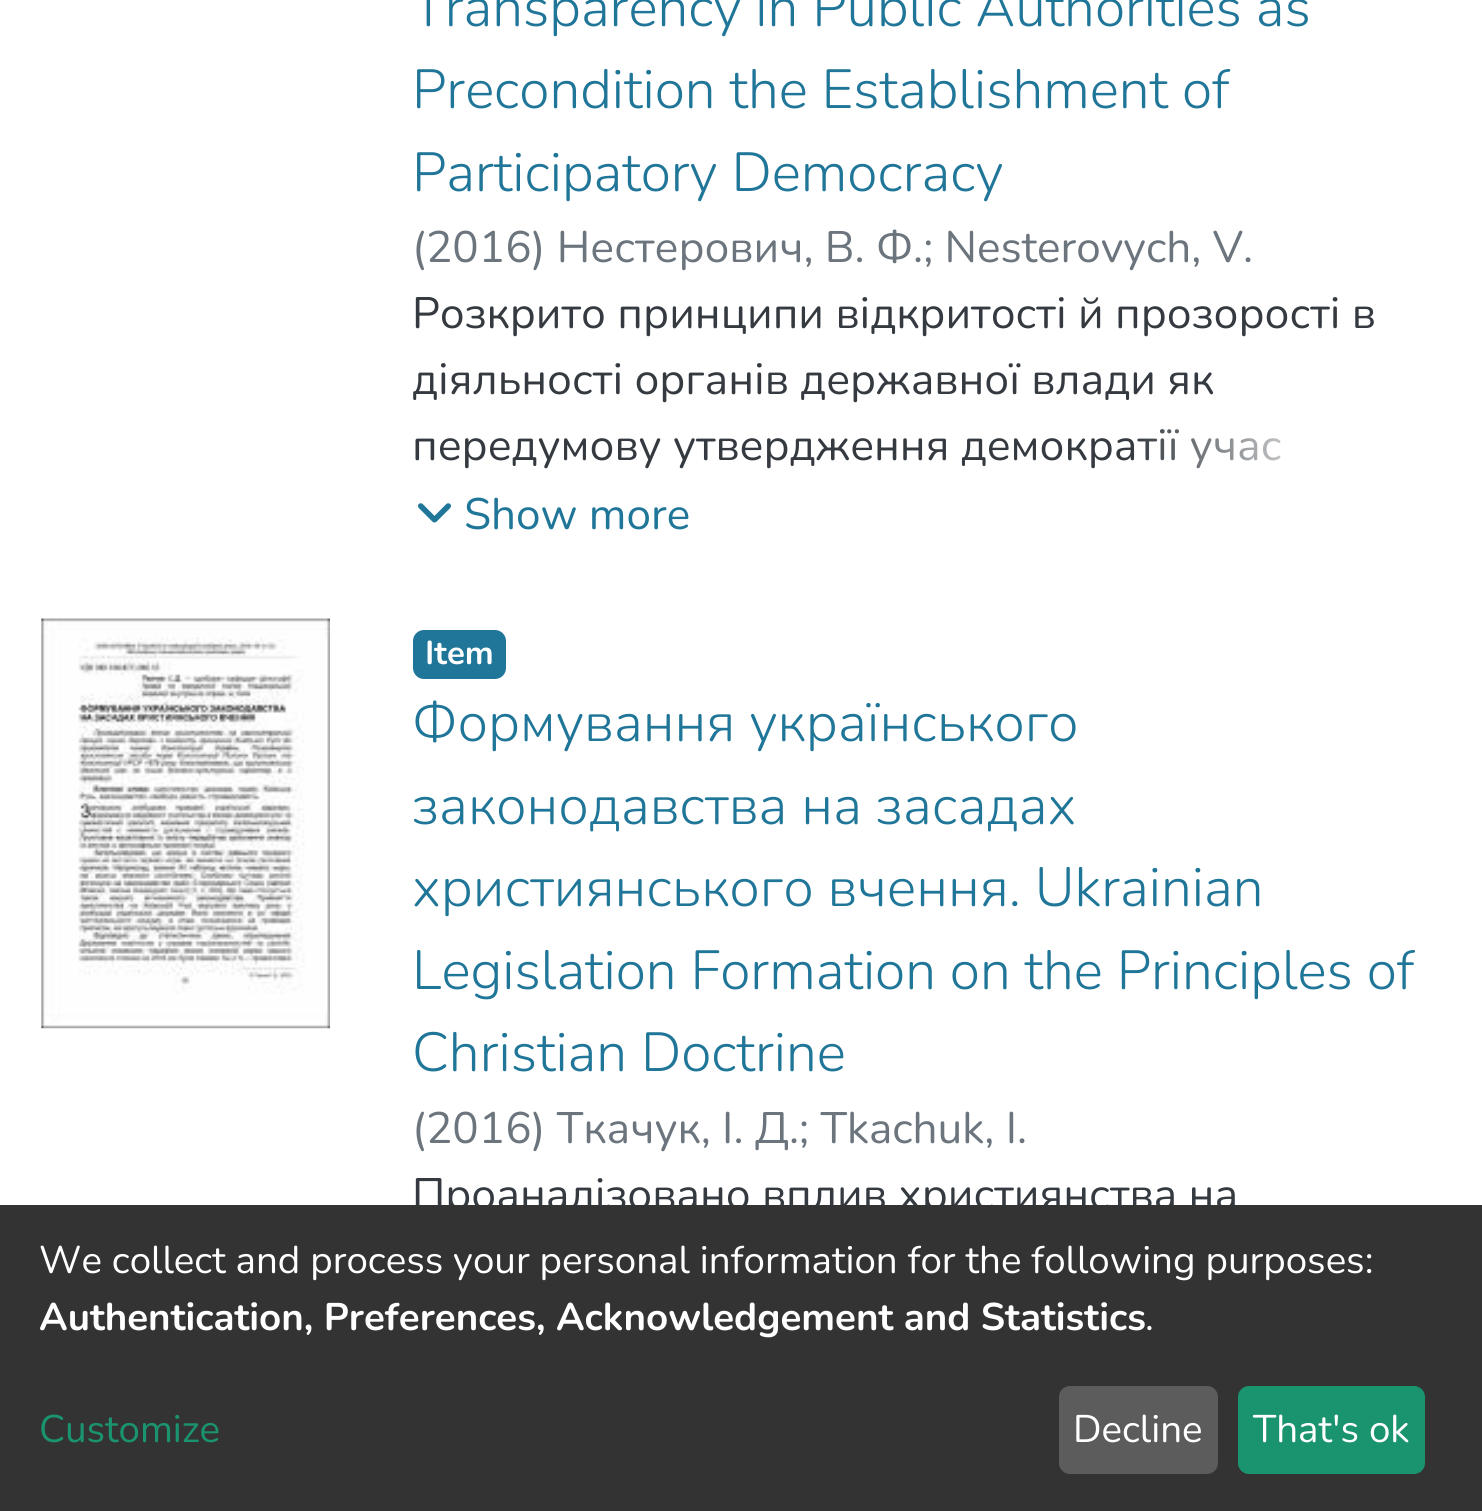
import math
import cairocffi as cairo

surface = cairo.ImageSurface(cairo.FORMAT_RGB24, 1482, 1511)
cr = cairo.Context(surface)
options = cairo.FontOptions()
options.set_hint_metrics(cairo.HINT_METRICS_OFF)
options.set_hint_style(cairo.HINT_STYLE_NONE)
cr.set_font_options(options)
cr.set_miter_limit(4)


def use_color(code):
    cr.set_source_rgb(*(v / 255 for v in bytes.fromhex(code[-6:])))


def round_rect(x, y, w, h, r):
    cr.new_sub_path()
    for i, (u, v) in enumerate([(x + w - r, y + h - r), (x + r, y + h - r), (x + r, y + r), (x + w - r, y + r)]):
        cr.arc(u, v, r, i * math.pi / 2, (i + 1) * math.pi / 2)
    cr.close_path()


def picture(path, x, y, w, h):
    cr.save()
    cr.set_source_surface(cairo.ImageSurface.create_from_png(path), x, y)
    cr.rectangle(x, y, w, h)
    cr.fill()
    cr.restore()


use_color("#ffffff")
cr.paint()
cr.select_font_face("Nunito Light")
cr.set_font_size(55)
use_color("#207698")
cr.move_to(412, 26)
cr.show_text("Transparency in Public Authorities as")
cr.move_to(412, 108)
cr.show_text("Precondition the Establishment of")
cr.move_to(412, 191)
cr.show_text("Participatory Democracy")
cr.select_font_face("Nunito")
cr.set_font_size(44)
use_color("#6c757d")
cr.move_to(412, 262)
cr.show_text("(2016) Нестерович, В. Ф.; Nesterovych, V.")
use_color("#343a40")
cr.move_to(412, 328)
cr.show_text("Розкрито принципи відкритості й прозорості в")
cr.move_to(412, 394)
cr.show_text("діяльності органів державної влади як")
cr.move_to(412, 460)
cr.show_text("передумову утвердження демократії учас")
gradient = cairo.LinearGradient(1133, 446, 1441, 446)
gradient.add_color_stop_rgba(0, 1, 1, 1, 0)
gradient.add_color_stop_rgba(0.7, 1, 1, 1, 1)
cr.set_source(gradient)
cr.rectangle(1138, 429, 143, 40)
cr.fill()
picture("img1.png", 418, 503, 33, 20)
use_color("#207698")
cr.move_to(464, 529)
cr.show_text("Show more")
picture("img2.png", 41, 618, 289, 411)
round_rect(413, 630, 93, 49, 11)
cr.fill()
cr.select_font_face("Nunito", cairo.FONT_SLANT_NORMAL, cairo.FONT_WEIGHT_BOLD)
cr.set_font_size(33)
use_color("#ffffff")
cr.move_to(425, 664)
cr.show_text("Item")
cr.select_font_face("Nunito Light")
cr.set_font_size(55)
use_color("#207698")
cr.move_to(412, 741)
cr.show_text("Формування українського")
cr.move_to(412, 824)
cr.show_text("законодавства на засадах")
cr.move_to(412, 906)
cr.show_text("християнського вчення. Ukrainian")
cr.move_to(412, 989)
cr.show_text("Legislation Formation on the Principles of")
cr.move_to(412, 1071)
cr.show_text("Christian Doctrine")
cr.select_font_face("Nunito")
cr.set_font_size(44)
use_color("#6c757d")
cr.move_to(412, 1143)
cr.show_text("(2016) Ткачук, І. Д.; Tkachuk, I.")
use_color("#343a40")
cr.move_to(412, 1209)
cr.show_text("Проаналізовано вплив християнства на")
use_color("#333333")
cr.rectangle(0, 1205, 1482, 306)
cr.fill()
cr.set_font_size(38.5)
use_color("#ffffff")
cr.move_to(39, 1273)
cr.show_text("We collect and process your personal information for the following purposes:")
cr.select_font_face("Nunito", cairo.FONT_SLANT_NORMAL, cairo.FONT_WEIGHT_BOLD)
cr.move_to(39, 1330)
cr.show_text("Authentication, Preferences, Acknowledgement and Statistics")
cr.select_font_face("Nunito")
cr.move_to(1145, 1330)
cr.show_text(".")
use_color("#1a936f")
cr.move_to(39, 1442)
cr.show_text("Customize")
use_color("#5c5c5c")
round_rect(1059, 1386, 159, 88, 11)
cr.fill()
use_color("#ffffff")
cr.move_to(1073, 1442)
cr.show_text("Decline")
use_color("#1a936f")
round_rect(1238, 1386, 187, 88, 11)
cr.fill()
use_color("#ffffff")
cr.move_to(1253, 1442)
cr.show_text("That's ok")
surface.write_to_png("result.png")
